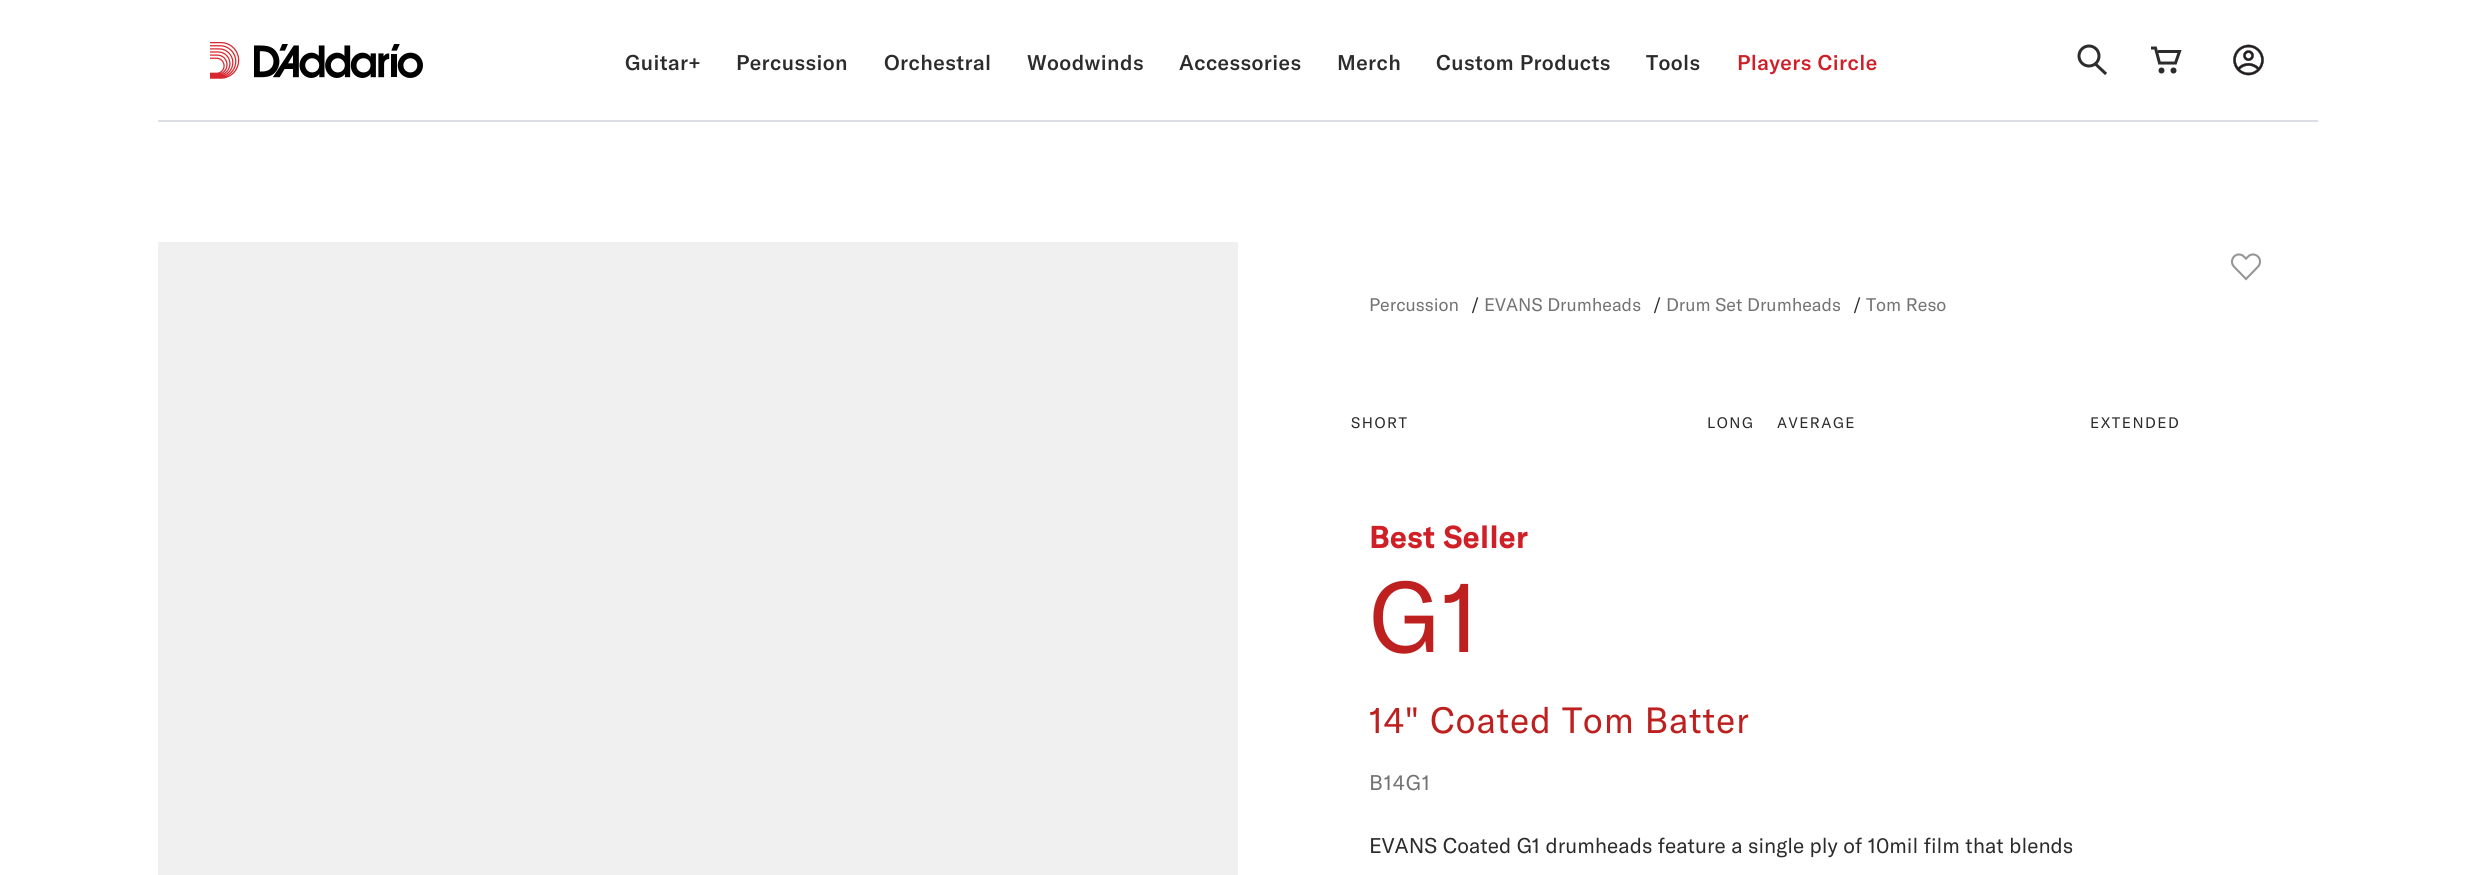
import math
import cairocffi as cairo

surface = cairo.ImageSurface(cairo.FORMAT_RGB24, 2473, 875)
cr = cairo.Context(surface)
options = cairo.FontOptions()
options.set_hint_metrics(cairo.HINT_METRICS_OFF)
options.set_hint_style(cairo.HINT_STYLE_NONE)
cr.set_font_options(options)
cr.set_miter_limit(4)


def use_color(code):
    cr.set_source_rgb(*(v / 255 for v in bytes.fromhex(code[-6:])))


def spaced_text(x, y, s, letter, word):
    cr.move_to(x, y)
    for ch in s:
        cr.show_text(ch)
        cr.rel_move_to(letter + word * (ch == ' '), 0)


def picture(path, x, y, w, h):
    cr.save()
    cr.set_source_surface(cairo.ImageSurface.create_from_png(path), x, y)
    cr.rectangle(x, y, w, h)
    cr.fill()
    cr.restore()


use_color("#ffffff")
cr.paint()
use_color("#dbdfe4")
cr.rectangle(158, 120, 2160, 2)
cr.fill()
picture("img1.png", 210, 42, 30, 37)
picture("img2.png", 254, 44, 169, 34)
cr.select_font_face("GT America Medium")
cr.set_font_size(21)
use_color("#2c2c2c")
spaced_text(625, 70, "Guitar+", 0.4, 0)
spaced_text(736, 70, "Percussion", 0.4, 0)
spaced_text(884, 70, "Orchestral", 0.4, 0)
spaced_text(1027, 70, "Woodwinds", 0.4, 0)
spaced_text(1179, 70, "Accessories", 0.4, 0)
spaced_text(1337, 70, "Merch", 0.4, 0)
spaced_text(1436, 70, "Custom Products", 0.4, 0)
spaced_text(1646, 70, "Tools", 0.4, 0)
use_color("#cf2027")
spaced_text(1737, 70, "Players Circle", 0.4, 0)
cr.new_path()
cr.arc(2089, 56, 10, 0, 2 * math.pi)
use_color("#2c2c2c")
cr.set_line_width(3)
cr.stroke()
cr.new_path()
cr.move_to(2105, 73)
cr.line_to(2096.5, 65)
cr.set_line_cap(cairo.LINE_CAP_SQUARE)
cr.stroke()
cr.arc(2161.5, 70.5, 3, 0, 2 * math.pi)
cr.fill()
cr.arc(2173.5, 70.5, 3, 0, 2 * math.pi)
cr.fill()
cr.new_path()
cr.move_to(2151, 48)
cr.line_to(2155.5, 48)
cr.line_to(2159.5, 63)
cr.line_to(2175.5, 63)
cr.line_to(2179.5, 51.5)
cr.line_to(2158, 51.5)
cr.set_line_cap(cairo.LINE_CAP_BUTT)
cr.stroke()
picture("img3.png", 2233, 44, 31, 32)
picture("img4.png", 2231, 253, 30, 28)
use_color("#f0f0f0")
cr.rectangle(158, 242, 1080, 633)
cr.fill()
cr.select_font_face("GT America")
cr.set_font_size(18)
use_color("#737373")
cr.move_to(1369, 311)
cr.show_text("Percussion")
use_color("#2c2c2c")
cr.move_to(1471, 311)
cr.show_text("/")
use_color("#737373")
cr.move_to(1484, 311)
cr.show_text("EVANS Drumheads")
use_color("#2c2c2c")
cr.move_to(1653, 311)
cr.show_text("/")
use_color("#737373")
cr.move_to(1666, 311)
cr.show_text("Drum Set Drumheads")
use_color("#2c2c2c")
cr.move_to(1853, 311)
cr.show_text("/")
use_color("#737373")
cr.move_to(1866, 311)
cr.show_text("Tom Reso")
cr.set_font_size(15)
use_color("#2c2c2c")
spaced_text(1351, 428, "SHORT", 1.5, 0)
spaced_text(1707, 428, "LONG", 1.5, 0)
spaced_text(1777, 428, "AVERAGE", 1.5, 0)
spaced_text(2090, 428, "EXTENDED", 1.5, 0)
cr.select_font_face("GT America", cairo.FONT_SLANT_NORMAL, cairo.FONT_WEIGHT_BOLD)
cr.set_font_size(30)
use_color("#cf2027")
spaced_text(1369, 548, "Best Seller", 0.75, 0)
cr.select_font_face("GT America")
cr.set_font_size(98)
use_color("#be201f")
spaced_text(1369, 652, "G1", 1.5, 0)
cr.set_font_size(36)
spaced_text(1369, 733, "14\" Coated Tom Batter", 0.75, 0)
cr.set_font_size(21)
use_color("#737373")
spaced_text(1369, 790, "B14G1", 1, 0)
use_color("#2c2c2c")
cr.move_to(1369, 853)
cr.show_text("EVANS Coated G1 drumheads feature a single ply of 10mil film that blends")
surface.write_to_png("result.png")
